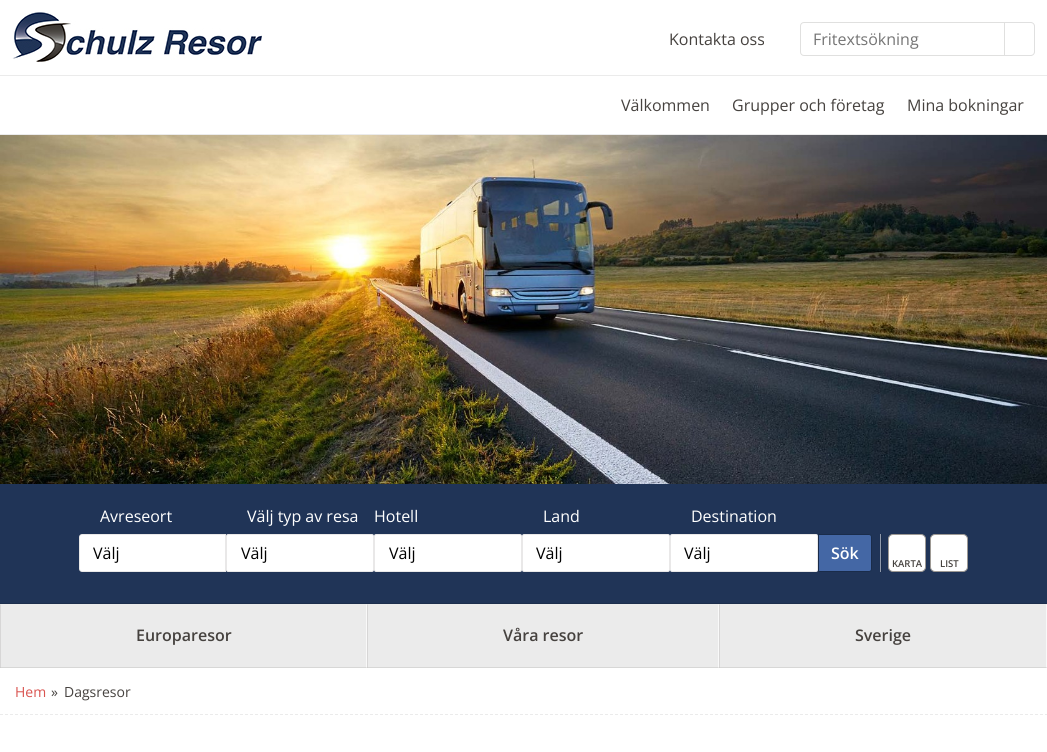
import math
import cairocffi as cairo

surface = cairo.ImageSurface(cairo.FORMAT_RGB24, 1047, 752)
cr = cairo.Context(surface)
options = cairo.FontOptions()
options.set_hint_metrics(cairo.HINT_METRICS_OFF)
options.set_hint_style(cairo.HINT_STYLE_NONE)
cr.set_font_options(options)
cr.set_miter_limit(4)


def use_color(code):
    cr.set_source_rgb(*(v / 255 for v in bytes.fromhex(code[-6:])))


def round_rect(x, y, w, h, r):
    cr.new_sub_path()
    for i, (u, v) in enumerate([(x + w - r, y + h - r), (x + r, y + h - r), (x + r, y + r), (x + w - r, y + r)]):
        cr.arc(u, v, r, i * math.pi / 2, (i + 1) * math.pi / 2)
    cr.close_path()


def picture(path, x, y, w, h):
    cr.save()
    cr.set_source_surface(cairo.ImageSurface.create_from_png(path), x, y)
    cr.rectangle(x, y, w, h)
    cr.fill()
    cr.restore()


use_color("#ffffff")
cr.paint()
use_color("#ebebeb")
cr.rectangle(0, 75, 1047, 1)
cr.fill()
picture("img1.png", 12, 12, 250, 50)
cr.select_font_face("Open Sans")
cr.set_font_size(16)
use_color("#46423f")
cr.move_to(669, 45)
cr.show_text("Kontakta oss")
cr.new_path()
cr.move_to(804, 22.5)
cr.line_to(1004.5, 22.5)
cr.line_to(1004.5, 55.5)
cr.line_to(804, 55.5)
cr.curve_to(802, 55.5, 800.5, 54, 800.5, 52)
cr.line_to(800.5, 26)
cr.curve_to(800.5, 24, 802, 22.5, 804, 22.5)
cr.close_path()
use_color("#e0e0df")
cr.set_line_width(1)
cr.stroke()
use_color("#757575")
cr.move_to(813, 45)
cr.show_text("Fritextsökning")
use_color("#e0e0e0")
cr.set_fill_rule(cairo.FILL_RULE_EVEN_ODD)
cr.new_path()
cr.move_to(1005, 22)
cr.line_to(1031, 22)
cr.curve_to(1033, 22, 1035, 24, 1035, 26)
cr.line_to(1035, 52)
cr.curve_to(1035, 54, 1033, 56, 1031, 56)
cr.line_to(1005, 56)
cr.close_path()
cr.move_to(1005, 23)
cr.line_to(1031, 23)
cr.curve_to(1032.5, 23, 1034, 24.5, 1034, 26)
cr.line_to(1034, 52)
cr.curve_to(1034, 53.5, 1032.5, 55, 1031, 55)
cr.line_to(1005, 55)
cr.close_path()
cr.fill()
use_color("#ebebeb")
cr.rectangle(0, 134, 1047, 1)
cr.fill()
use_color("#46423f")
cr.move_to(621, 111)
cr.show_text("Välkommen")
cr.move_to(732, 111)
cr.show_text("Grupper och företag")
cr.move_to(907, 111)
cr.show_text("Mina bokningar")
picture("img2.png", 0, 135, 1047, 349)
use_color("#203457")
cr.rectangle(0, 484, 1047, 119)
cr.fill()
use_color("#1c2e4d")
cr.rectangle(0, 603, 1047, 1)
cr.fill()
use_color("#ffffff")
cr.move_to(100, 522)
cr.show_text("Avreseort")
cr.new_path()
cr.move_to(82, 534)
cr.line_to(226, 534)
cr.line_to(226, 572)
cr.line_to(82, 572)
cr.curve_to(80.5, 572, 79, 570.5, 79, 569)
cr.line_to(79, 537)
cr.curve_to(79, 535.5, 80.5, 534, 82, 534)
cr.close_path()
cr.fill()
cr.new_path()
cr.move_to(82, 534.5)
cr.line_to(225.5, 534.5)
cr.line_to(225.5, 571.5)
cr.line_to(82, 571.5)
cr.curve_to(80.5, 571.5, 79.5, 570.5, 79.5, 569)
cr.line_to(79.5, 537)
cr.curve_to(79.5, 535.5, 80.5, 534.5, 82, 534.5)
cr.close_path()
cr.set_source_rgba(0.275, 0.259, 0.247, 0.12)
cr.stroke()
use_color("#000000")
cr.move_to(93, 559)
cr.show_text("Välj")
use_color("#ffffff")
cr.move_to(247, 522)
cr.show_text("Välj typ av resa")
round_rect(226, 534, 148, 38, 2)
cr.fill()
round_rect(226.5, 534.5, 147, 37, 1.5)
cr.set_source_rgba(0.275, 0.259, 0.247, 0.12)
cr.stroke()
use_color("#000000")
cr.move_to(241, 559)
cr.show_text("Välj")
use_color("#ffffff")
cr.move_to(374, 522)
cr.show_text("Hotell")
round_rect(374, 534, 148, 38, 2)
cr.fill()
round_rect(374.5, 534.5, 147, 37, 1.5)
cr.set_source_rgba(0.275, 0.259, 0.247, 0.12)
cr.stroke()
use_color("#000000")
cr.move_to(389, 559)
cr.show_text("Välj")
use_color("#ffffff")
cr.move_to(543, 522)
cr.show_text("Land")
round_rect(522, 534, 148, 38, 2)
cr.fill()
round_rect(522.5, 534.5, 147, 37, 1.5)
cr.set_source_rgba(0.275, 0.259, 0.247, 0.12)
cr.stroke()
use_color("#000000")
cr.move_to(536, 559)
cr.show_text("Välj")
use_color("#ffffff")
cr.move_to(691, 522)
cr.show_text("Destination")
round_rect(670, 534, 148, 38, 2)
cr.fill()
round_rect(670.5, 534.5, 147, 37, 1.5)
cr.set_source_rgba(0.275, 0.259, 0.247, 0.12)
cr.stroke()
use_color("#000000")
cr.move_to(684, 559)
cr.show_text("Välj")
use_color("#4467a5")
cr.new_path()
cr.move_to(818.5, 534.5)
cr.line_to(869, 534.5)
cr.curve_to(870.5, 534.5, 871.5, 535.5, 871.5, 537)
cr.line_to(871.5, 569)
cr.curve_to(871.5, 570.5, 870.5, 571.5, 869, 571.5)
cr.line_to(818.5, 571.5)
cr.close_path()
cr.fill_preserve()
use_color("#1a2c4a")
cr.stroke()
cr.select_font_face("Open Sans SemiBold")
use_color("#ffffff")
cr.move_to(831, 559)
cr.show_text("Sök")
use_color("#1c2e4d")
cr.rectangle(881, 534, 1, 38)
cr.fill()
use_color("#909aab")
cr.rectangle(880, 534, 1, 38)
cr.fill()
use_color("#ffffff")
round_rect(888.5, 534.5, 37, 37, 4.5)
cr.fill_preserve()
use_color("#9d9994")
cr.stroke()
cr.set_font_size(9.5)
use_color("#46423f")
cr.move_to(892, 567)
cr.show_text("KARTA")
use_color("#ffffff")
round_rect(930.5, 534.5, 37, 37, 4.5)
cr.fill_preserve()
use_color("#9d9994")
cr.stroke()
use_color("#46423f")
cr.move_to(940, 567)
cr.show_text("LIST")
use_color("#ebebeb")
cr.rectangle(0, 604, 1047, 63)
cr.fill()
use_color("#d7d7d6")
cr.rectangle(0, 667, 1047, 1)
cr.fill()
cr.set_source_rgba(1, 1, 1, 0.7)
cr.set_fill_rule(cairo.FILL_RULE_WINDING)
cr.new_path()
cr.move_to(367, 604)
cr.line_to(367, 668)
cr.line_to(366, 667)
cr.line_to(366, 605)
cr.close_path()
cr.fill()
cr.set_source_rgba(0.275, 0.259, 0.247, 0.12)
cr.new_path()
cr.move_to(0, 668)
cr.line_to(0, 604)
cr.line_to(1, 605)
cr.line_to(1, 667)
cr.close_path()
cr.fill()
cr.set_font_size(16)
use_color("#46423f")
cr.move_to(136, 641)
cr.show_text("Europaresor")
cr.set_source_rgba(1, 1, 1, 0.7)
cr.new_path()
cr.move_to(719, 604)
cr.line_to(719, 668)
cr.line_to(718, 667)
cr.line_to(718, 605)
cr.close_path()
cr.fill()
cr.set_source_rgba(0.275, 0.259, 0.247, 0.12)
cr.new_path()
cr.move_to(367, 668)
cr.line_to(367, 604)
cr.line_to(368, 605)
cr.line_to(368, 667)
cr.close_path()
cr.fill()
use_color("#46423f")
cr.move_to(503, 641)
cr.show_text("Våra resor")
cr.set_source_rgba(1, 1, 1, 0.7)
cr.new_path()
cr.move_to(1047, 604)
cr.line_to(1047, 668)
cr.line_to(1046, 667)
cr.line_to(1046, 605)
cr.close_path()
cr.fill()
cr.set_source_rgba(0.275, 0.259, 0.247, 0.12)
cr.new_path()
cr.move_to(719, 668)
cr.line_to(719, 604)
cr.line_to(720, 605)
cr.line_to(720, 667)
cr.close_path()
cr.fill()
use_color("#46423f")
cr.move_to(855, 641)
cr.show_text("Sverige")
cr.new_path()
cr.move_to(0, 714.5)
cr.line_to(1047, 714.5)
use_color("#ebebeb")
cr.set_dash([3, 2])
cr.stroke()
cr.select_font_face("Open Sans")
cr.set_font_size(14)
use_color("#d9534f")
cr.move_to(15, 697)
cr.show_text("Hem")
use_color("#46423f")
cr.move_to(51, 697)
cr.show_text("»")
cr.move_to(64, 697)
cr.show_text("Dagsresor")
surface.write_to_png("result.png")
